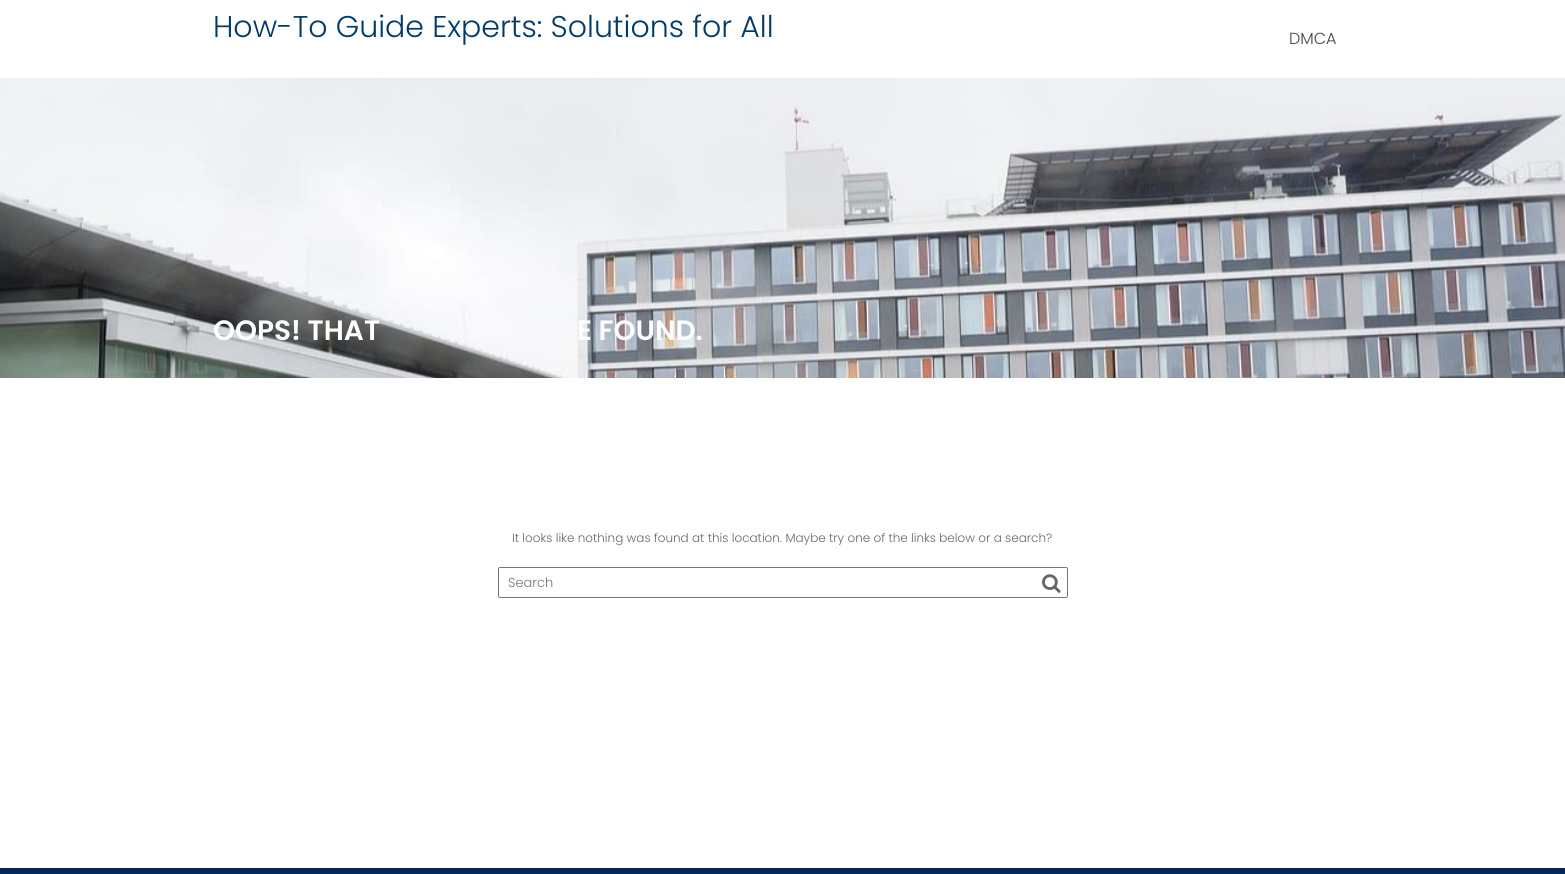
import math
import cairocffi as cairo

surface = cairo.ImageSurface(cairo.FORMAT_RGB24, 1565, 874)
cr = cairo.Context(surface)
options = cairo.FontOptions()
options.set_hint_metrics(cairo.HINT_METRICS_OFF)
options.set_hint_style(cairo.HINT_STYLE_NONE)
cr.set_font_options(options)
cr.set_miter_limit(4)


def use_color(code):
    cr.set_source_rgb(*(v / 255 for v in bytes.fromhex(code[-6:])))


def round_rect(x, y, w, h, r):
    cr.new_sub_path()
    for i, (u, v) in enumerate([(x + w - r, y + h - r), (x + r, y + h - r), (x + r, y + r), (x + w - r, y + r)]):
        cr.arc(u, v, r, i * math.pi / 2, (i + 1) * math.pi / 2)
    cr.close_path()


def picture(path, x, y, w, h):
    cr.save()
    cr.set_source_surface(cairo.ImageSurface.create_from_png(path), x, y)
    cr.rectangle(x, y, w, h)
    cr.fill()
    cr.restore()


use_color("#ffffff")
cr.paint()
cr.select_font_face("Poppins Light")
cr.set_font_size(30)
use_color("#003a6a")
cr.move_to(213, 37)
cr.show_text("How-To Guide Experts: Solutions for All")
cr.set_font_size(16)
use_color("#444444")
cr.move_to(1289, 44)
cr.show_text("DMCA")
picture("img1.png", 0, 78, 1565, 300)
cr.select_font_face("Poppins SemiBold")
cr.set_font_size(28)
use_color("#ffffff")
cr.move_to(213, 340)
cr.show_text("OOPS! THAT")
cr.move_to(577, 340)
cr.show_text("E FOUND.")
cr.select_font_face("Poppins Light")
cr.set_font_size(12)
use_color("#666666")
cr.move_to(512, 542)
cr.show_text("It looks like nothing was found at this location. Maybe try one of the links below or a search?")
round_rect(498.5, 567.5, 569, 30, 1.5)
use_color("#767676")
cr.set_line_width(1)
cr.stroke()
cr.set_font_size(13)
use_color("#757575")
cr.move_to(508, 587)
cr.show_text("Search")
picture("img2.png", 1042, 574, 19, 19)
use_color("#002858")
cr.rectangle(0, 868, 1565, 6)
cr.fill()
surface.write_to_png("result.png")
